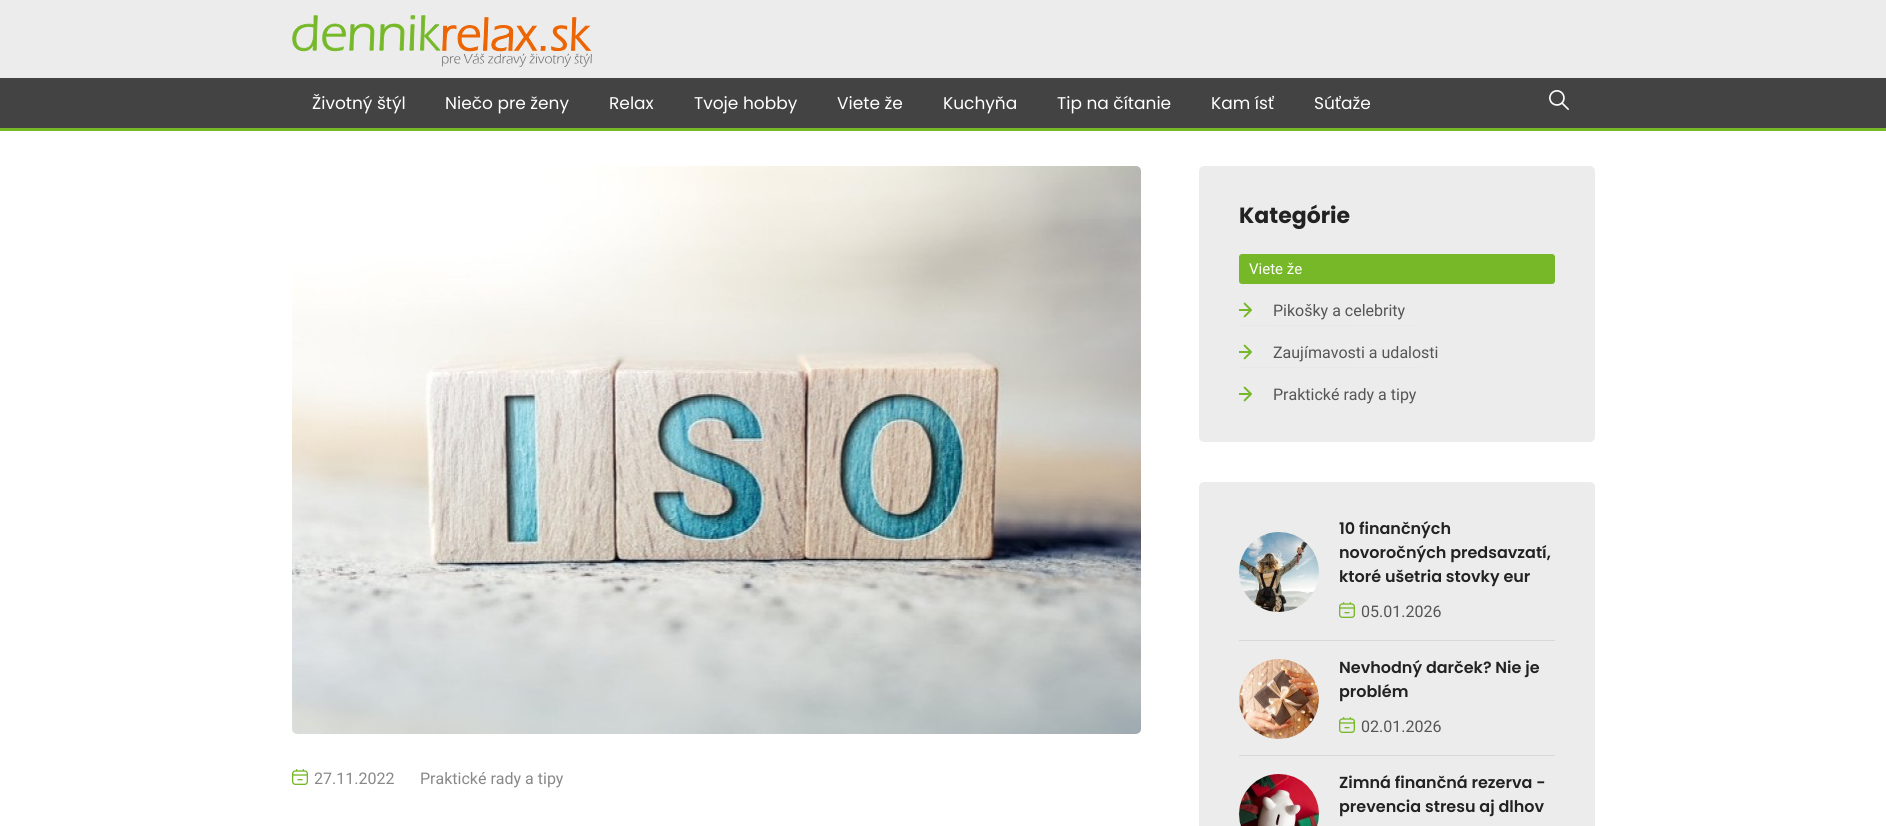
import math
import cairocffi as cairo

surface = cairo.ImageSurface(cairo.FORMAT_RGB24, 1886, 826)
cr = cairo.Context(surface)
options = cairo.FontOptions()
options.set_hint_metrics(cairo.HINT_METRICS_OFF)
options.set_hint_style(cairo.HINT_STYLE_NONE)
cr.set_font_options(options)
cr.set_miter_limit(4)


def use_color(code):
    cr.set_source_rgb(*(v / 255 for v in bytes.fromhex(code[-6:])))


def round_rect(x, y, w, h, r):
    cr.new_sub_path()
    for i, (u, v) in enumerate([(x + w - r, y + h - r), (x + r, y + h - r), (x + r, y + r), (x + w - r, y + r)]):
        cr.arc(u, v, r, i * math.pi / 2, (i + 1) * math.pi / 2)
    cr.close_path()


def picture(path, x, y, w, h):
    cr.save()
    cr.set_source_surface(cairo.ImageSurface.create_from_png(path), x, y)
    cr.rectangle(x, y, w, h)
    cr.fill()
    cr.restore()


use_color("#ffffff")
cr.paint()
use_color("#ececec")
cr.rectangle(0, 0, 1886, 78)
cr.fill()
use_color("#76b828")
cr.rectangle(0, 128, 1886, 3)
cr.fill()
picture("img1.png", 292, 15, 300, 52)
use_color("#434343")
cr.rectangle(0, 78, 1886, 50)
cr.fill()
cr.select_font_face("Poppins")
cr.set_font_size(17)
use_color("#ffffff")
cr.move_to(312, 109)
cr.show_text("Životný štýl")
cr.move_to(445, 109)
cr.show_text("Niečo pre ženy")
cr.move_to(609, 109)
cr.show_text("Relax")
cr.move_to(694, 109)
cr.show_text("Tvoje hobby")
cr.move_to(837, 109)
cr.show_text("Viete že")
cr.move_to(943, 109)
cr.show_text("Kuchyňa")
cr.move_to(1057, 109)
cr.show_text("Tip na čítanie")
cr.move_to(1211, 109)
cr.show_text("Kam ísť")
cr.move_to(1314, 109)
cr.show_text("Súťaže")
picture("img2.png", 1549, 90, 20, 20)
picture("img3.png", 292, 166, 849, 568)
picture("img4.png", 292, 769, 16, 16)
cr.select_font_face("Roboto")
cr.set_font_size(16)
use_color("#888888")
cr.move_to(314, 784)
cr.show_text("27.11.2022")
cr.move_to(420, 784)
cr.show_text("Praktické rady a tipy")
use_color("#ececec")
round_rect(1199, 166, 396, 276, 5)
cr.fill()
cr.select_font_face("Poppins", cairo.FONT_SLANT_NORMAL, cairo.FONT_WEIGHT_BOLD)
cr.set_font_size(22)
use_color("#222222")
cr.move_to(1239, 223)
cr.show_text("Kategórie")
use_color("#76b828")
round_rect(1239, 254, 316, 30, 3)
cr.fill()
cr.select_font_face("Roboto")
cr.set_font_size(15)
use_color("#ffffff")
cr.move_to(1249, 274)
cr.show_text("Viete že")
picture("img5.png", 1239, 302, 13, 16)
cr.set_font_size(16)
use_color("#555555")
cr.move_to(1273, 316)
cr.show_text("Pikošky a celebrity")
gradient = cairo.LinearGradient(1239, 326, 1600, 326)
gradient.add_color_stop_rgba(0, 0.906, 0.906, 0.906, 1)
gradient.add_color_stop_rgba(1, 0.925, 0.925, 0.925, 1)
cr.set_source(gradient)
cr.rectangle(1239, 325, 181, 1)
cr.fill()
picture("img5.png", 1239, 344, 13, 16)
use_color("#555555")
cr.move_to(1273, 358)
cr.show_text("Zaujímavosti a udalosti")
gradient = cairo.LinearGradient(1239, 368, 1600, 368)
gradient.add_color_stop_rgba(0, 0.906, 0.906, 0.906, 1)
gradient.add_color_stop_rgba(1, 0.925, 0.925, 0.925, 1)
cr.set_source(gradient)
cr.rectangle(1239, 367, 181, 1)
cr.fill()
picture("img5.png", 1239, 386, 13, 16)
use_color("#555555")
cr.move_to(1273, 400)
cr.show_text("Praktické rady a tipy")
use_color("#ececec")
round_rect(1199, 482, 396, 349, 5)
cr.fill()
use_color("#d8d8d8")
cr.rectangle(1239, 640, 316, 1)
cr.fill()
picture("img6.png", 1239, 532, 80, 80)
cr.select_font_face("Poppins SemiBold")
use_color("#222222")
cr.move_to(1339, 534)
cr.show_text("10 finančných")
cr.move_to(1339, 558)
cr.show_text("novoročných predsavzatí,")
cr.move_to(1339, 582)
cr.show_text("ktoré ušetria stovky eur")
picture("img7.png", 1339, 602, 16, 16)
cr.select_font_face("Roboto")
use_color("#555555")
cr.move_to(1361, 617)
cr.show_text("05.01.2026")
use_color("#d8d8d8")
cr.rectangle(1239, 755, 316, 1)
cr.fill()
picture("img8.png", 1239, 659, 80, 80)
cr.select_font_face("Poppins SemiBold")
use_color("#222222")
cr.move_to(1339, 673)
cr.show_text("Nevhodný darček? Nie je")
cr.move_to(1339, 697)
cr.show_text("problém")
picture("img7.png", 1339, 717, 16, 16)
cr.select_font_face("Roboto")
use_color("#555555")
cr.move_to(1361, 732)
cr.show_text("02.01.2026")
picture("img9.png", 1239, 774, 80, 52)
cr.select_font_face("Poppins SemiBold")
use_color("#222222")
cr.move_to(1339, 788)
cr.show_text("Zimná finančná rezerva -")
cr.move_to(1339, 812)
cr.show_text("prevencia stresu aj dlhov")
surface.write_to_png("result.png")
